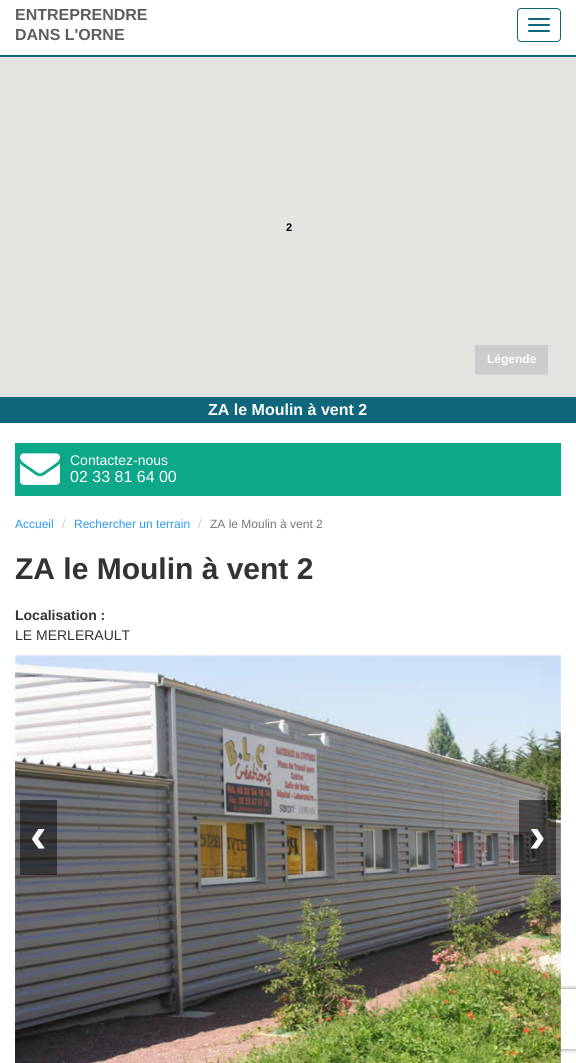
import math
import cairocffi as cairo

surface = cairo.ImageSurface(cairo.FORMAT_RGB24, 576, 1063)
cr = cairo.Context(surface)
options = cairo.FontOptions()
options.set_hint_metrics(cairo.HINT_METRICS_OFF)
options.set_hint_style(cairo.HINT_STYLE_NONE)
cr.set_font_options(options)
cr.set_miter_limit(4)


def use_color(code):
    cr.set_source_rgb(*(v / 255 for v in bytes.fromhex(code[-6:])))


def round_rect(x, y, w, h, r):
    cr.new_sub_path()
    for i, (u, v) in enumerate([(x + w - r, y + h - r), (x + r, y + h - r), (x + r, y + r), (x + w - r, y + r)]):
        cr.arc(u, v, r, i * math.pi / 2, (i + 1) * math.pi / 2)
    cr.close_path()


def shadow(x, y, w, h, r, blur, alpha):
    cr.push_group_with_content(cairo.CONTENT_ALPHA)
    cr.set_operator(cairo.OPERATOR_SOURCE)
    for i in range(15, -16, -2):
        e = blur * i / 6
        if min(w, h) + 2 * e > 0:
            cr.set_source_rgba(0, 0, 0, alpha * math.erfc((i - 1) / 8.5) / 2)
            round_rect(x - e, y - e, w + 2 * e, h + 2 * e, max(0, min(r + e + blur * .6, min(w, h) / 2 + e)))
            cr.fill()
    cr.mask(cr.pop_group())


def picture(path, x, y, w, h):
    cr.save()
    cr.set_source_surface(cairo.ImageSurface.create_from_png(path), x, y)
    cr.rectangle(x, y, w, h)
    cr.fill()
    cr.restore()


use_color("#ffffff")
cr.paint()
cr.select_font_face("Liberation Sans", cairo.FONT_SLANT_NORMAL, cairo.FONT_WEIGHT_BOLD)
cr.set_font_size(16)
use_color("#5e5e5e")
cr.move_to(15, 20)
cr.show_text("ENTREPRENDRE")
cr.move_to(15, 40)
cr.show_text("DANS L'ORNE")
round_rect(517.5, 8.5, 43, 33, 3.5)
use_color("#10667b")
cr.set_line_width(1)
cr.stroke()
round_rect(528, 18, 22, 2, 1)
cr.fill()
round_rect(528, 24, 22, 2, 1)
cr.fill()
round_rect(528, 30, 22, 2, 1)
cr.fill()
cr.rectangle(0, 55, 576, 2)
cr.fill()
use_color("#e5e3df")
cr.rectangle(0, 57, 576, 340)
cr.fill()
cr.set_font_size(11)
use_color("#000000")
cr.move_to(286, 231)
cr.show_text("2")
use_color("#000000")
shadow(475, 346, 73, 29, 0, 0.5, 0.05)
use_color("#cccccc")
cr.rectangle(475, 345, 73, 29)
cr.fill()
cr.set_font_size(12)
use_color("#ffffff")
cr.move_to(487, 363)
cr.show_text("Légende")
use_color("#10667b")
cr.rectangle(0, 397, 576, 26)
cr.fill()
cr.set_font_size(16)
use_color("#ffffff")
cr.move_to(208, 415)
cr.show_text("ZA le Moulin à vent 2")
use_color("#0da789")
cr.rectangle(15, 443, 546, 53)
cr.fill()
picture("img1.png", 20, 453, 40, 32)
cr.select_font_face("Liberation Sans")
cr.set_font_size(14)
use_color("#ffffff")
cr.move_to(70, 465)
cr.show_text("Contactez-nous")
cr.set_font_size(16)
cr.move_to(70, 482)
cr.show_text("02 33 81 64 00")
cr.set_font_size(12)
use_color("#2d9bf0")
cr.move_to(15, 528)
cr.show_text("Accueil")
use_color("#cccccc")
cr.move_to(62, 528)
cr.show_text("/")
use_color("#2d9bf0")
cr.move_to(74, 528)
cr.show_text("Rechercher un terrain")
use_color("#cccccc")
cr.move_to(198, 528)
cr.show_text("/")
use_color("#777777")
cr.move_to(210, 528)
cr.show_text("ZA le Moulin à vent 2")
cr.select_font_face("Liberation Sans", cairo.FONT_SLANT_NORMAL, cairo.FONT_WEIGHT_BOLD)
cr.set_font_size(30)
use_color("#333333")
cr.move_to(15, 579)
cr.show_text("ZA le Moulin à vent 2")
cr.set_font_size(14)
cr.move_to(15, 620)
cr.show_text("Localisation :")
cr.select_font_face("Liberation Sans")
cr.move_to(15, 640)
cr.show_text("LE MERLERAULT")
cr.save()
cr.set_fill_rule(cairo.FILL_RULE_EVEN_ODD)
cr.new_path()
cr.move_to(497, 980)
cr.line_to(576, 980)
cr.line_to(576, 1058)
cr.line_to(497, 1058)
cr.close_path()
cr.move_to(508, 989)
cr.line_to(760, 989)
cr.curve_to(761, 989, 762, 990, 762, 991)
cr.line_to(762, 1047)
cr.curve_to(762, 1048, 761, 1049, 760, 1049)
cr.line_to(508, 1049)
cr.curve_to(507, 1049, 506, 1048, 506, 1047)
cr.line_to(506, 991)
cr.curve_to(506, 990, 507, 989, 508, 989)
cr.close_path()
cr.clip()
use_color("#808080")
shadow(506, 989, 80, 60, 2, 2.5, 1)
cr.restore()
picture("img2.png", 15, 655, 546, 408)
cr.set_source_rgba(0, 0, 0, 0.5)
cr.rectangle(20, 800, 37, 75)
cr.fill()
cr.select_font_face("Liberation Sans", cairo.FONT_SLANT_NORMAL, cairo.FONT_WEIGHT_BOLD)
cr.set_font_size(50)
use_color("#ffffff")
cr.move_to(30, 852)
cr.show_text("‹")
cr.set_source_rgba(0, 0, 0, 0.5)
cr.rectangle(519, 800, 37, 75)
cr.fill()
use_color("#ffffff")
cr.move_to(529, 852)
cr.show_text("›")
surface.write_to_png("result.png")
